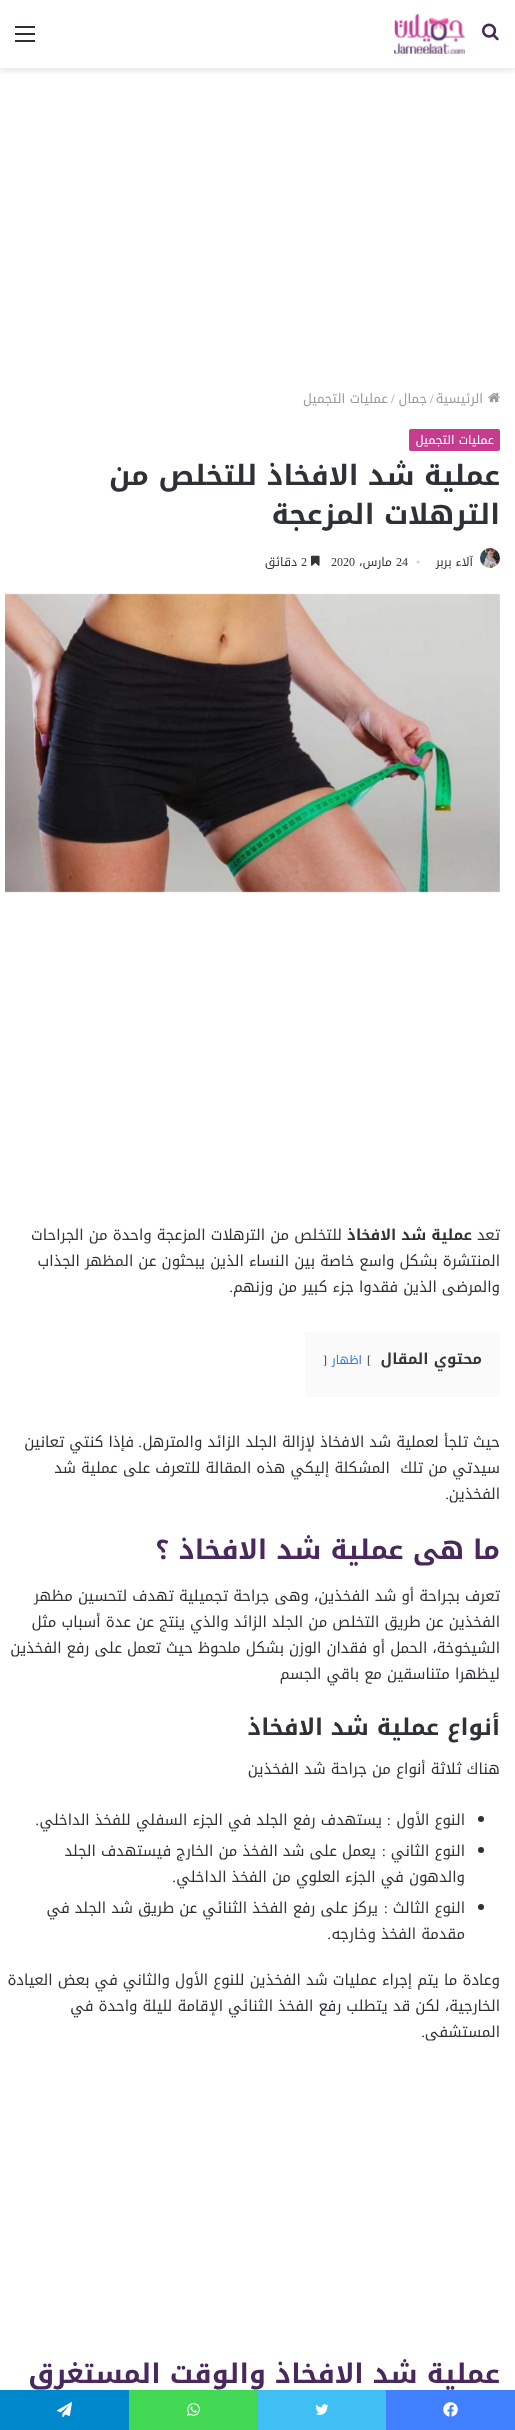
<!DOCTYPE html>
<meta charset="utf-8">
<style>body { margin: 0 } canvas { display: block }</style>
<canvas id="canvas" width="515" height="2430"></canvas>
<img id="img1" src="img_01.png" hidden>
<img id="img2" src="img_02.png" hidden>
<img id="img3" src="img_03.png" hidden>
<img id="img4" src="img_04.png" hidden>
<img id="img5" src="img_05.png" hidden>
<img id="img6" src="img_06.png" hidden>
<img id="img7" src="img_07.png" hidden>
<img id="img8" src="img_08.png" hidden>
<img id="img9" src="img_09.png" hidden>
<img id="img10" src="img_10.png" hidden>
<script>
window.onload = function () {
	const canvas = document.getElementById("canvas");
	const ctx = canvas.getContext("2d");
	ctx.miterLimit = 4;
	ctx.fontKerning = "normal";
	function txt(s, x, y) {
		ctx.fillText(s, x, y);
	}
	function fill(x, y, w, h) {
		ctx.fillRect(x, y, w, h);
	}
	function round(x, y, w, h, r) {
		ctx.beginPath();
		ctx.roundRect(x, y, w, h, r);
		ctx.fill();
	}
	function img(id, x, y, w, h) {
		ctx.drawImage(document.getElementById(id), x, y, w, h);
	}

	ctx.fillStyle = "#FFFFFF";
	fill(0, 0, 515, 2430);
	ctx.save();
	ctx.beginPath();
	ctx.rect(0, 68, 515, 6);
	ctx.clip();
	ctx.fillStyle = "rgba(0, 0, 0, 0.1)";
	ctx.filter = "blur(3.5px)";
	ctx.beginPath();
	ctx.rect(0, 3, 515, 68);
	ctx.fill();
	ctx.filter = "none";
	ctx.restore();
	img("img1", 482, 23, 17, 18);
	img("img2", 394, 14, 71, 40);
	ctx.fillStyle = "#2C2F34";
	fill(15, 33, 20, 2);
	fill(15, 26, 20, 2);
	fill(15, 40, 20, 2);
	img("img3", 488, 392, 12, 11);
	ctx.fillStyle = "#C63D90";
	round(409, 429, 91, 22, 2);
	img("img4", 480, 548, 20, 20);
	img("img5", 311, 555, 9, 11);
	img("img6", 5, 593, 495, 300);
	ctx.fillStyle = "#FAFAFA";
	fill(305, 1332, 195, 65);
	ctx.fillStyle = "#2E3136";
	ctx.beginPath();
	ctx.arc(481, 1819, 3, 0, Math.PI * 2);
	ctx.fill();
	ctx.beginPath();
	ctx.arc(481, 1850, 3, 0, Math.PI * 2);
	ctx.fill();
	ctx.beginPath();
	ctx.arc(481, 1907, 3, 0, Math.PI * 2);
	ctx.fill();
	ctx.fillStyle = "#4080FF";
	fill(386, 2390, 129, 40);
	img("img7", 443, 2402, 15, 15);
	ctx.fillStyle = "#40BFF5";
	fill(258, 2390, 128, 40);
	img("img8", 315, 2404, 14, 11);
	ctx.fillStyle = "#43D854";
	fill(129, 2390, 129, 40);
	img("img9", 187, 2403, 13, 13);
	ctx.fillStyle = "#0088CC";
	fill(0, 2390, 129, 40);
	img("img10", 57, 2402, 15, 15);
	ctx.direction = "rtl";
	ctx.font = "13px Noto Kufi Arabic";
	ctx.fillStyle = "#9A9A9A";
	txt("الرئيسية", 483, 403);
	ctx.direction = "ltr";
	ctx.font = "13px Liberation Serif";
	txt("/", 430, 403);
	ctx.direction = "rtl";
	ctx.font = "13px Noto Kufi Arabic";
	txt("جمال", 427, 403);
	ctx.direction = "ltr";
	ctx.font = "13px Liberation Serif";
	txt("/", 391, 403);
	ctx.direction = "rtl";
	ctx.font = "13px Noto Kufi Arabic";
	txt("عمليات التجميل", 388, 403);
	ctx.font = "12px Noto Kufi Arabic";
	ctx.fillStyle = "#FFFFFF";
	txt("عمليات التجميل", 494, 444);
	ctx.font = "bold 28px Noto Kufi Arabic";
	ctx.fillStyle = "#2E3136";
	txt("عملية شد الافخاذ للتخلص من", 500, 485);
	txt("الترهلات المزعجة", 500, 524);
	ctx.font = "12px Noto Kufi Arabic";
	ctx.fillStyle = "#353535";
	txt("آلاء بربر", 473, 566);
	ctx.direction = "ltr";
	ctx.font = "12px Liberation Serif";
	ctx.fillStyle = "#CDCDCD";
	txt("•", 416, 566);
	ctx.fillStyle = "#353535";
	txt("24", 396, 566);
	ctx.direction = "rtl";
	ctx.font = "12px Noto Kufi Arabic";
	txt("مارس،", 392, 566);
	ctx.direction = "ltr";
	ctx.font = "12px Liberation Serif";
	txt("2020", 331, 566);
	txt("2", 301, 566);
	ctx.direction = "rtl";
	ctx.font = "12px Noto Kufi Arabic";
	txt("دقائق", 297, 566);
	ctx.font = "15px Noto Kufi Arabic";
	ctx.fillStyle = "#2E3136";
	txt("تعد", 500, 1240);
	ctx.font = "bold 15px Noto Kufi Arabic";
	txt("عملية شد الافخاذ", 472, 1240);
	ctx.font = "15px Noto Kufi Arabic";
	txt("للتخلص من الترهلات المزعجة واحدة من الجراحات", 342, 1240);
	txt("المنتشرة بشكل واسع خاصة بين النساء الذين يبحثون عن المظهر الجذاب", 500, 1266);
	txt("والمرضى الذين فقدوا جزء كبير من وزنهم", 500, 1292);
	ctx.font = "15px Liberation Serif";
	txt(".", 233, 1292);
	ctx.font = "bold 15px Noto Kufi Arabic";
	ctx.fillStyle = "#353535";
	txt("محتوي المقال", 482, 1364);
	ctx.direction = "ltr";
	ctx.font = "12px Liberation Serif";
	txt("[", 367, 1364);
	ctx.direction = "rtl";
	ctx.font = "12px Noto Kufi Arabic";
	ctx.fillStyle = "#3376E4";
	txt("اظهار", 362, 1364);
	ctx.direction = "ltr";
	ctx.font = "12px Liberation Serif";
	ctx.fillStyle = "#353535";
	txt("]", 323, 1364);
	ctx.direction = "rtl";
	ctx.font = "15px Noto Kufi Arabic";
	ctx.fillStyle = "#2E3136";
	txt("حيث تلجأ لعملية شد الافخاذ لإزالة الجلد الزائد والمترهل", 500, 1447);
	ctx.font = "15px Liberation Serif";
	txt(".", 142, 1447);
	ctx.font = "15px Noto Kufi Arabic";
	txt("فإذا كنتي تعانين", 134, 1447);
	txt("سيدتي من تلك  المشكلة إليكي هذه المقالة للتعرف على عملية شد", 500, 1473);
	txt("الفخذين", 500, 1499);
	ctx.font = "15px Liberation Serif";
	txt(".", 449, 1499);
	ctx.font = "bold 27px Noto Kufi Arabic";
	ctx.fillStyle = "#49295D";
	txt("ما هى عملية شد الافخاذ ؟", 500, 1559);
	ctx.font = "15px Noto Kufi Arabic";
	ctx.fillStyle = "#2E3136";
	txt("تعرف بجراحة أو شد الفخذين، وهى جراحة تجميلية تهدف لتحسين مظهر", 500, 1601);
	txt("الفخذين عن طريق التخلص من الجلد الزائد والذي ينتج عن عدة أسباب مثل", 500, 1627);
	txt("الشيخوخة، الحمل أو فقدان الوزن بشكل ملحوظ حيث تعمل على رفع الفخذين", 500, 1653);
	txt("ليظهرا متناسقين مع باقي الجسم", 500, 1679);
	ctx.font = "bold 23px Noto Kufi Arabic";
	txt("أنواع عملية شد الافخاذ", 500, 1735);
	ctx.font = "15px Noto Kufi Arabic";
	txt("هناك ثلاثة أنواع من جراحة شد الفخذين", 500, 1774);
	txt("النوع الأول", 465, 1825);
	ctx.font = "15px Liberation Serif";
	txt(":", 391, 1825);
	ctx.font = "15px Noto Kufi Arabic";
	txt("يستهدف رفع الجلد في الجزء السفلي للفخذ الداخلي", 382, 1825);
	ctx.font = "15px Liberation Serif";
	txt(".", 39, 1825);
	ctx.font = "15px Noto Kufi Arabic";
	txt("النوع الثاني", 465, 1856);
	ctx.font = "15px Liberation Serif";
	txt(":", 386, 1856);
	ctx.font = "15px Noto Kufi Arabic";
	txt("يعمل على شد الفخذ من الخارج فيستهدف الجلد", 376, 1856);
	txt("والدهون في الجزء العلوي من الفخذ الداخلي", 465, 1882);
	ctx.font = "15px Liberation Serif";
	txt(".", 176, 1882);
	ctx.font = "15px Noto Kufi Arabic";
	txt("النوع الثالث", 465, 1913);
	ctx.font = "15px Liberation Serif";
	txt(":", 388, 1913);
	ctx.font = "15px Noto Kufi Arabic";
	txt("يركز على رفع الفخذ الثنائي عن طريق شد الجلد في", 378, 1913);
	txt("مقدمة الفخذ وخارجه", 465, 1939);
	ctx.font = "15px Liberation Serif";
	txt(".", 331, 1939);
	ctx.font = "15px Noto Kufi Arabic";
	txt("وعادة ما يتم إجراء عمليات شد الفخذين للنوع الأول والثاني في بعض العيادة", 500, 1985);
	txt("الخارجية، لكن قد يتطلب رفع الفخذ الثنائي الإقامة لليلة واحدة في", 500, 2011);
	txt("المستشفى", 500, 2037);
	ctx.font = "15px Liberation Serif";
	txt(".", 425, 2037);
	ctx.font = "bold 27px Noto Kufi Arabic";
	ctx.fillStyle = "#49295D";
	txt("عملية شد الافخاذ والوقت المستغرق", 500, 2383);
};
</script>
